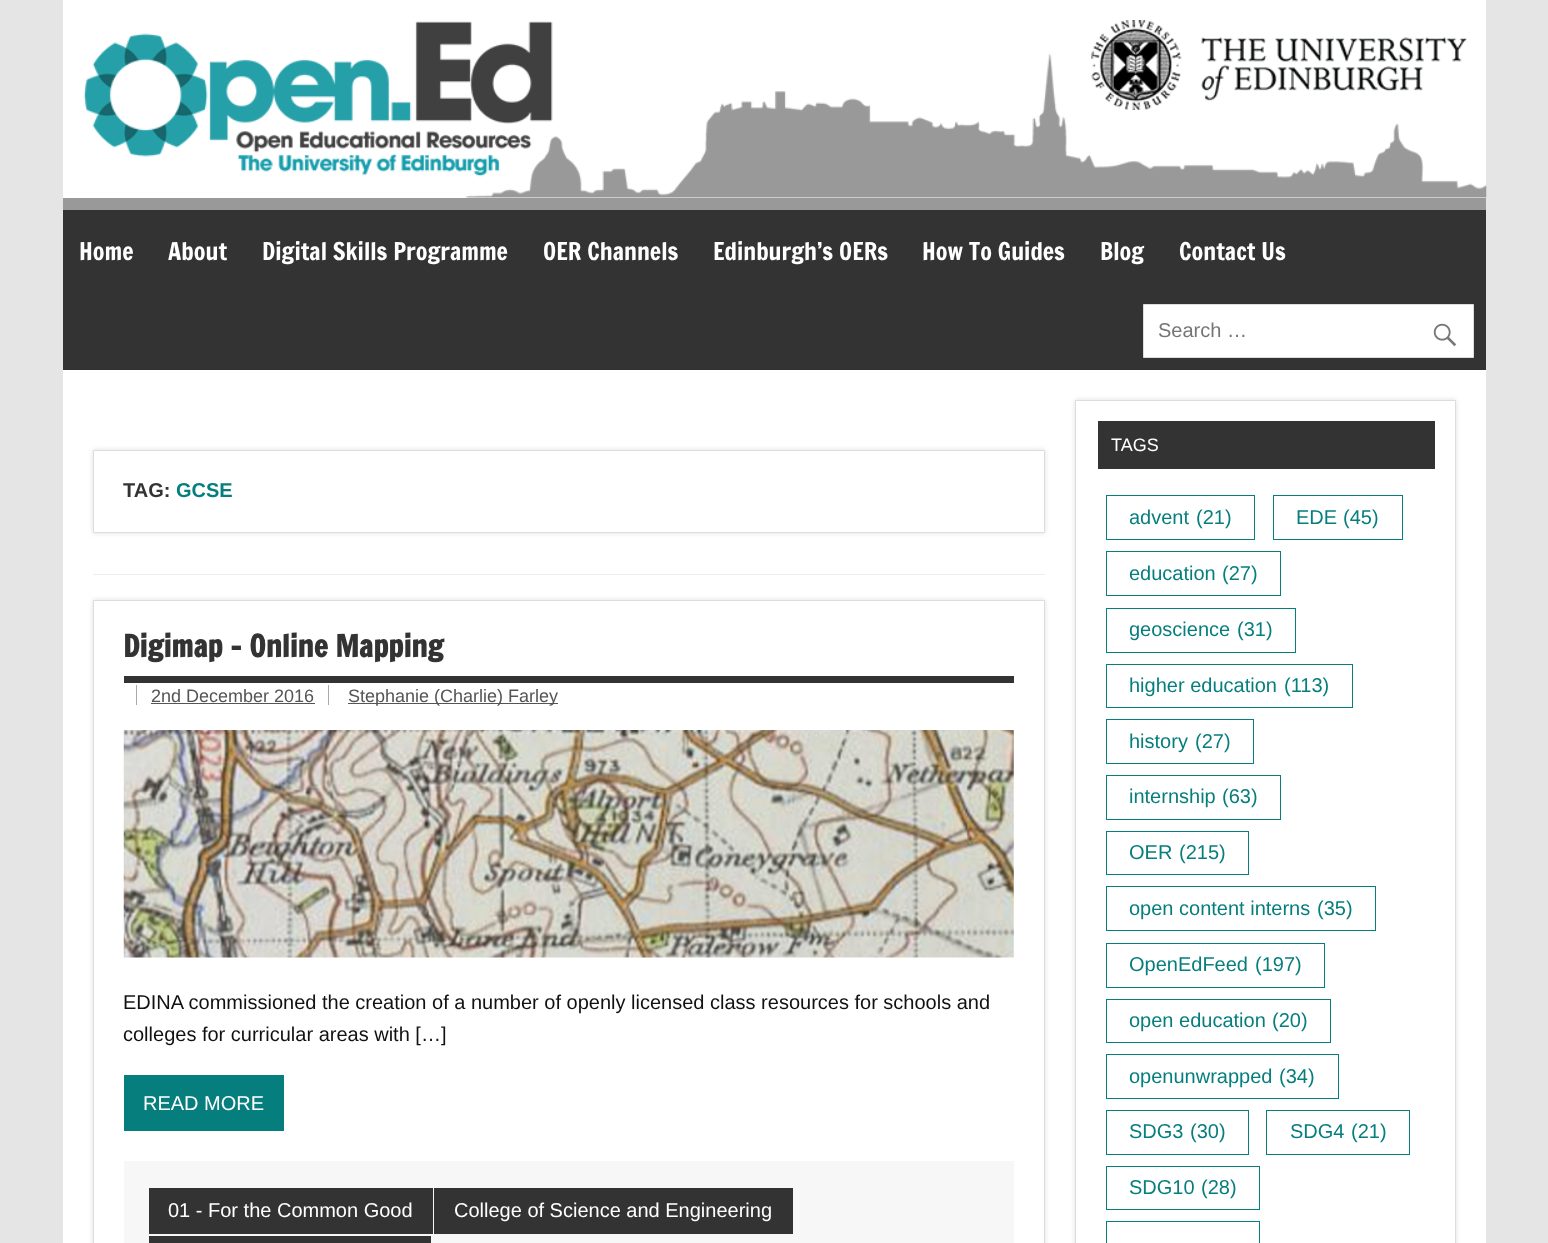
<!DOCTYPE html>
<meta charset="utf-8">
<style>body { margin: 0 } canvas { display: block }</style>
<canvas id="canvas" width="1548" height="1243"></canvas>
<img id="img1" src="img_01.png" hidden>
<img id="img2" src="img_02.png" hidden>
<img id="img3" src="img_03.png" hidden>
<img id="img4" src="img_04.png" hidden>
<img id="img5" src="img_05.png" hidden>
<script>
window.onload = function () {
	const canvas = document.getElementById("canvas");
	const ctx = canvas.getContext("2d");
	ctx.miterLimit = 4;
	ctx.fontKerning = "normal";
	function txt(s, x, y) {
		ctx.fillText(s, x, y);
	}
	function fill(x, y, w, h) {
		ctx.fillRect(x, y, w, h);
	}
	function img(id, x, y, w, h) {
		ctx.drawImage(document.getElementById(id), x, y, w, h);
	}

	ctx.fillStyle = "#E5E5E5";
	fill(0, 0, 1548, 1243);
	ctx.fillStyle = "#FFFFFF";
	fill(63, 0, 1423, 1243);
	img("img1", 466, 53, 1021, 145);
	ctx.fillStyle = "#999999";
	fill(63, 198, 1423, 12);
	img("img2", 83, 21, 470, 156);
	img("img3", 1091, 20, 376, 90);
	ctx.fillStyle = "#333333";
	fill(63, 210, 1423, 160);
	ctx.fillStyle = "#FFFFFF";
	ctx.beginPath();
	ctx.rect(1143.5, 304.5, 330, 53);
	ctx.fill();
	ctx.strokeStyle = "#DDDDDD";
	ctx.stroke();
	img("img4", 1433, 323, 24, 24);
	ctx.fillStyle = "#EEEEEE";
	fill(93, 574, 952, 1);
	ctx.fillStyle = "#DDDDDD";
	ctx.filter = "blur(2.5px)";
	ctx.beginPath();
	ctx.rect(93, 450, 952, 83);
	ctx.fill();
	ctx.filter = "none";
	ctx.fillStyle = "#FFFFFF";
	ctx.beginPath();
	ctx.rect(93.5, 450.5, 951, 82);
	ctx.fill();
	ctx.stroke();
	ctx.save();
	ctx.beginPath();
	ctx.moveTo(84, 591);
	ctx.lineTo(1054, 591);
	ctx.lineTo(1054, 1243);
	ctx.lineTo(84, 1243);
	ctx.closePath();
	ctx.moveTo(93, 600);
	ctx.lineTo(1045, 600);
	ctx.lineTo(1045, 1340);
	ctx.lineTo(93, 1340);
	ctx.closePath();
	ctx.clip("evenodd");
	ctx.fillStyle = "#DDDDDD";
	ctx.filter = "blur(2.5px)";
	ctx.beginPath();
	ctx.rect(93, 600, 952, 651);
	ctx.fill();
	ctx.filter = "none";
	ctx.restore();
	ctx.strokeRect(93.5, 600.5, 951, 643);
	ctx.fillStyle = "#333333";
	fill(124, 676, 890, 7);
	ctx.fillStyle = "#AAAAAA";
	fill(136, 685, 1, 20);
	ctx.fillStyle = "#555555";
	fill(151, 703, 164, 1);
	ctx.fillStyle = "#AAAAAA";
	fill(328, 685, 1, 20);
	ctx.fillStyle = "#555555";
	fill(348, 703, 210, 1);
	img("img5", 123, 730, 891, 228);
	ctx.fillStyle = "#067E7D";
	fill(124, 1075, 160, 56);
	ctx.fillStyle = "#F7F7F7";
	fill(124, 1161, 890, 82);
	ctx.fillStyle = "#333333";
	fill(149, 1188, 284, 46);
	fill(434, 1188, 359, 46);
	fill(149, 1236, 282, 7);
	ctx.save();
	ctx.beginPath();
	ctx.moveTo(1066, 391);
	ctx.lineTo(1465, 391);
	ctx.lineTo(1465, 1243);
	ctx.lineTo(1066, 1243);
	ctx.closePath();
	ctx.moveTo(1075, 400);
	ctx.lineTo(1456, 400);
	ctx.lineTo(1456, 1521);
	ctx.lineTo(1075, 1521);
	ctx.closePath();
	ctx.clip("evenodd");
	ctx.fillStyle = "#DDDDDD";
	ctx.filter = "blur(2.5px)";
	ctx.beginPath();
	ctx.rect(1075, 400, 381, 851);
	ctx.fill();
	ctx.filter = "none";
	ctx.restore();
	ctx.strokeRect(1075.5, 400.5, 380, 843);
	fill(1098, 421, 337, 48);
	ctx.strokeStyle = "#067E7D";
	ctx.strokeRect(1106.5, 495.5, 148, 44);
	ctx.strokeRect(1273.5, 495.5, 129, 44);
	ctx.strokeRect(1106.5, 551.5, 174, 44);
	ctx.strokeRect(1106.5, 608.5, 189, 44);
	ctx.strokeRect(1106.5, 664.5, 246, 43);
	ctx.strokeRect(1106.5, 719.5, 147, 44);
	ctx.strokeRect(1106.5, 775.5, 174, 44);
	ctx.strokeRect(1106.5, 831.5, 142, 43);
	ctx.strokeRect(1106.5, 886.5, 269, 44);
	ctx.strokeRect(1106.5, 943.5, 218, 44);
	ctx.strokeRect(1106.5, 999.5, 224, 43);
	ctx.strokeRect(1106.5, 1054.5, 232, 44);
	ctx.strokeRect(1106.5, 1110.5, 142, 44);
	ctx.strokeRect(1266.5, 1110.5, 143, 44);
	ctx.strokeRect(1106.5, 1166.5, 153, 43);
	ctx.strokeRect(1106.5, 1221.5, 153, 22);
	ctx.font = "24px Francois One";
	ctx.fillStyle = "#FFFFFF";
	txt("Home", 79, 260);
	txt("About", 168, 260);
	txt("Digital Skills Programme", 262, 260);
	txt("OER Channels", 543, 260);
	txt("Edinburgh’s OERs", 713, 260);
	txt("How To Guides", 922, 260);
	txt("Blog", 1100, 260);
	txt("Contact Us", 1179, 260);
	ctx.font = "20px Liberation Sans";
	ctx.fillStyle = "#757575";
	txt("Search …", 1158, 337);
	ctx.font = "bold 20px Liberation Sans";
	ctx.fillStyle = "#333333";
	txt("TAG:", 123, 497);
	ctx.fillStyle = "#067E7D";
	txt("GCSE", 176, 497);
	ctx.font = "bold 30px Francois One";
	ctx.fillStyle = "#333333";
	txt("Digimap – Online Mapping", 123, 657);
	ctx.font = "18px Liberation Sans";
	ctx.fillStyle = "#555555";
	txt("2nd December 2016", 151, 702);
	txt("Stephanie (Charlie) Farley", 348, 702);
	ctx.font = "20px Liberation Sans";
	ctx.fillStyle = "#111111";
	txt("EDINA commissioned the creation of a number of openly licensed class resources for schools and", 123, 1009);
	txt("colleges for curricular areas with […]", 123, 1041);
	ctx.fillStyle = "#FFFFFF";
	txt("READ MORE", 143, 1110);
	txt("01 - For the Common Good", 168, 1217);
	txt("College of Science and Engineering", 454, 1217);
	ctx.font = "18px Liberation Sans";
	txt("TAGS", 1111, 451);
	ctx.font = "20px Liberation Sans";
	ctx.fillStyle = "#067E7D";
	txt("advent", 1129, 524);
	txt("(21)", 1196, 524);
	txt("EDE", 1296, 524);
	txt("(45)", 1343, 524);
	txt("education", 1129, 580);
	txt("(27)", 1222, 580);
	txt("geoscience", 1129, 636);
	txt("(31)", 1237, 636);
	txt("higher education", 1129, 692);
	txt("(113)", 1284, 692);
	txt("history", 1129, 748);
	txt("(27)", 1195, 748);
	txt("internship", 1129, 803);
	txt("(63)", 1222, 803);
	txt("OER", 1129, 859);
	txt("(215)", 1179, 859);
	txt("open content interns", 1129, 915);
	txt("(35)", 1317, 915);
	txt("OpenEdFeed", 1129, 971);
	txt("(197)", 1255, 971);
	txt("open education", 1129, 1027);
	txt("(20)", 1272, 1027);
	txt("openunwrapped", 1129, 1083);
	txt("(34)", 1279, 1083);
	txt("SDG3", 1129, 1138);
	txt("(30)", 1190, 1138);
	txt("SDG4", 1290, 1138);
	txt("(21)", 1351, 1138);
	txt("SDG10", 1129, 1194);
	txt("(28)", 1201, 1194);
};
</script>
